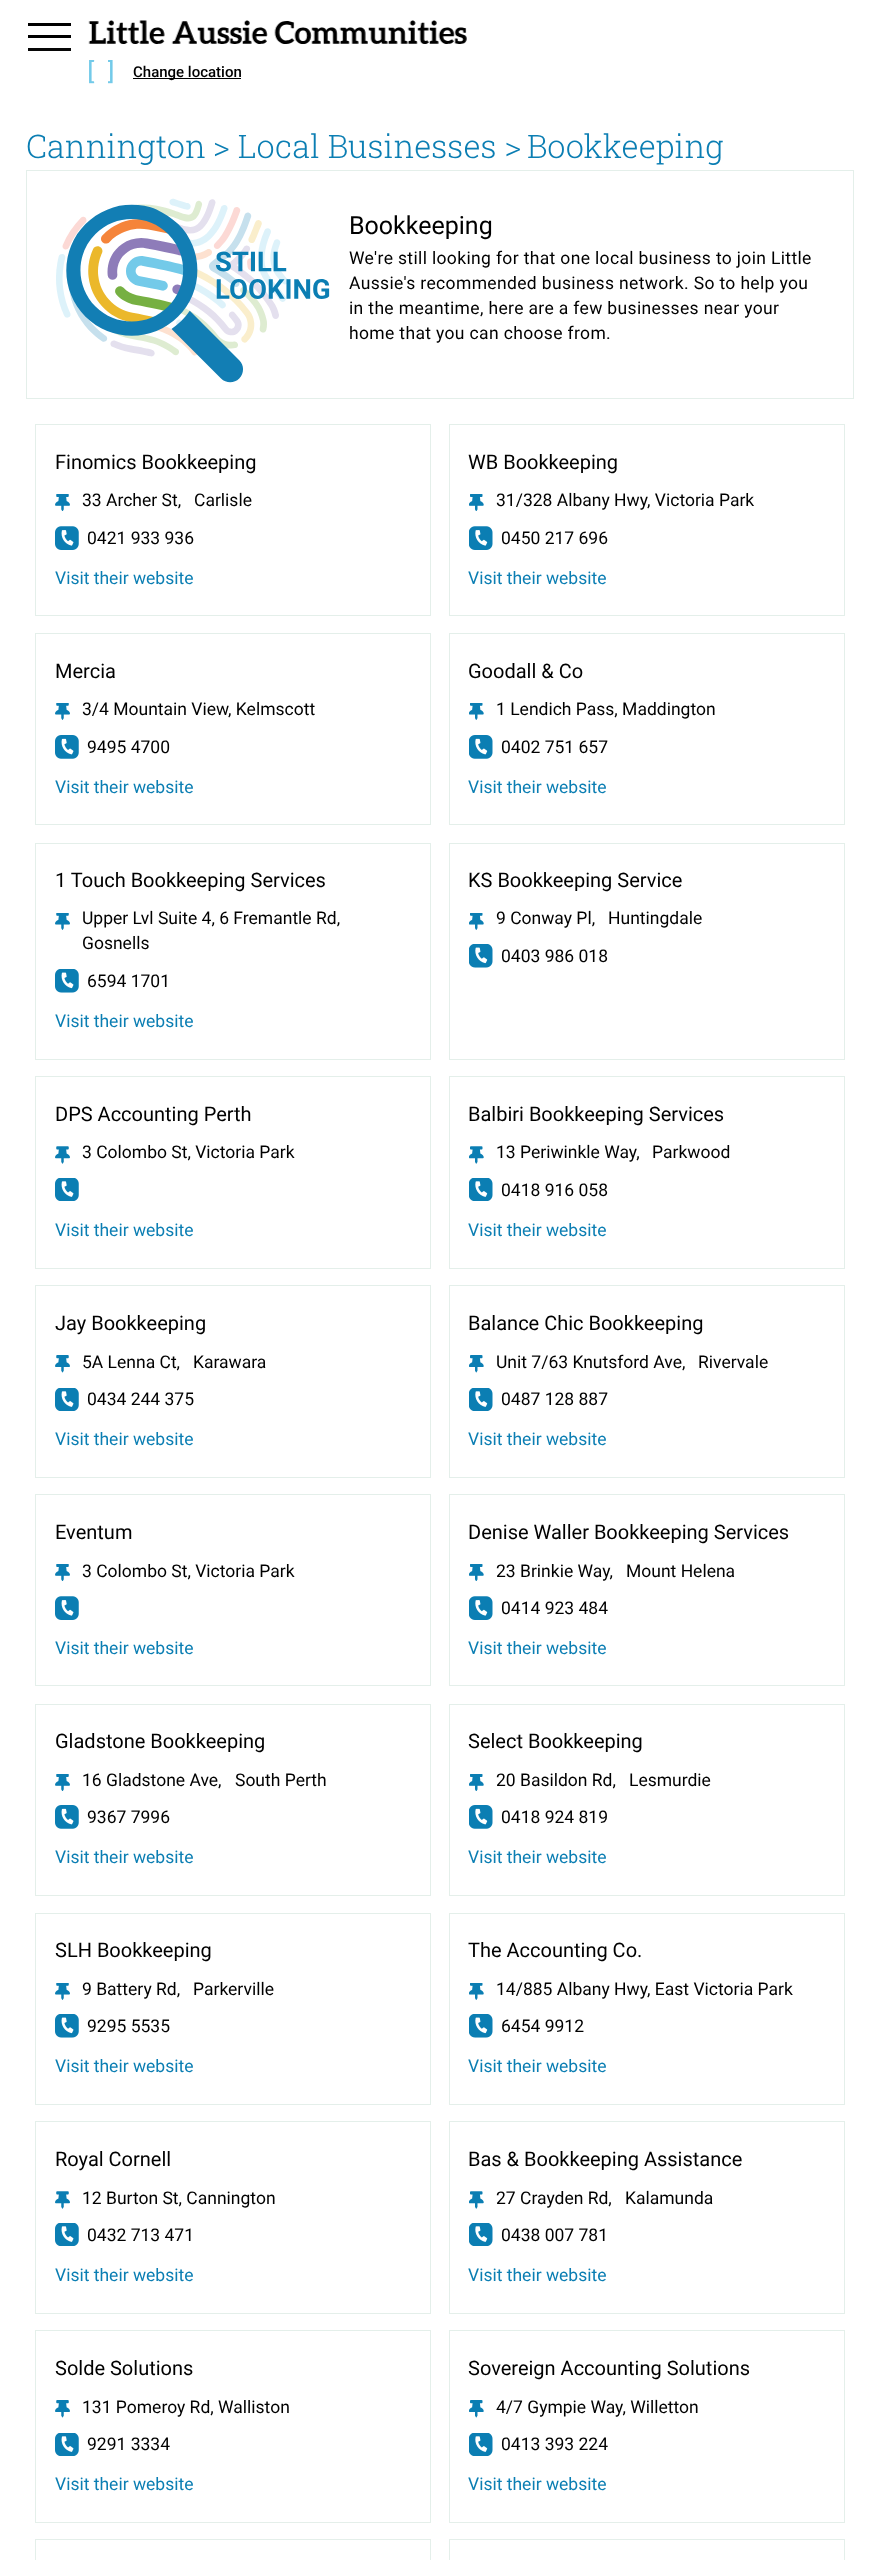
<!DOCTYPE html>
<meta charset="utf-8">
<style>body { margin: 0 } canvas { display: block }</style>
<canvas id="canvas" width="880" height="2560"></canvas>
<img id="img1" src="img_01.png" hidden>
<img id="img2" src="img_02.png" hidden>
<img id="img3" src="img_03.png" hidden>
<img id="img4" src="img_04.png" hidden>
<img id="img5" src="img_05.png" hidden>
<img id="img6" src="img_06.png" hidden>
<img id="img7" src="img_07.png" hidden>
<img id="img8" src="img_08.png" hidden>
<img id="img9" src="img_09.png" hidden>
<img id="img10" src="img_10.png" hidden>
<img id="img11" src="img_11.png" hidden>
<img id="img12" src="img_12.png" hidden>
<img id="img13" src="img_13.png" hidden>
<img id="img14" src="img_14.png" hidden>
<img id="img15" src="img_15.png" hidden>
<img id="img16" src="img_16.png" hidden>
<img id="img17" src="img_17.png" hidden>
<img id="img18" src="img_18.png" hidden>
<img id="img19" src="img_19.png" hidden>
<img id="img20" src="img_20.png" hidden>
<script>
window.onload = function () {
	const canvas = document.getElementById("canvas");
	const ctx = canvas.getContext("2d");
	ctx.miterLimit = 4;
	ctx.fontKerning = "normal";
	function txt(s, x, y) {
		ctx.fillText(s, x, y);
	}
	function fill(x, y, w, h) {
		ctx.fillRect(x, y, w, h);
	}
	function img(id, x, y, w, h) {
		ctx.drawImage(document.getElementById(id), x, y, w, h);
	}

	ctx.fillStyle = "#FFFFFF";
	fill(0, 0, 880, 2560);
	ctx.fillStyle = "#000000";
	fill(28, 23, 43, 3);
	fill(28, 35, 43, 3);
	ctx.fillStyle = "#070707";
	fill(28, 48, 43, 3);
	img("img1", 88, 20, 379, 24);
	img("img2", 89, 60, 6, 24);
	img("img3", 108, 60, 5, 24);
	ctx.fillStyle = "#000000";
	fill(133, 78, 108, 1);
	ctx.strokeStyle = "#E4EFEA";
	ctx.strokeRect(26.5, 170.5, 827, 228);
	img("img4", 56, 198, 274, 185);
	ctx.strokeRect(35.5, 424.5, 395, 191);
	img("img5", 55, 494, 15, 17);
	img("img6", 55, 526, 24, 24);
	ctx.strokeRect(449.5, 424.5, 395, 191);
	img("img7", 469, 494, 15, 17);
	img("img8", 469, 526, 24, 24);
	ctx.strokeRect(35.5, 633.5, 395, 191);
	img("img9", 55, 703, 15, 17);
	img("img10", 55, 735, 24, 24);
	ctx.strokeRect(449.5, 633.5, 395, 191);
	img("img11", 469, 703, 15, 17);
	img("img12", 469, 735, 24, 24);
	ctx.strokeRect(35.5, 843.5, 395, 216);
	img("img9", 55, 913, 15, 17);
	img("img13", 55, 969, 24, 24);
	ctx.strokeRect(449.5, 843.5, 395, 216);
	img("img11", 469, 913, 15, 17);
	img("img14", 469, 944, 24, 24);
	ctx.strokeRect(35.5, 1076.5, 395, 192);
	img("img15", 55, 1146, 15, 18);
	img("img16", 55, 1178, 24, 23);
	ctx.strokeRect(449.5, 1076.5, 395, 192);
	img("img17", 469, 1146, 15, 18);
	img("img18", 469, 1178, 24, 23);
	ctx.strokeRect(35.5, 1285.5, 395, 192);
	img("img19", 55, 1355, 15, 18);
	img("img16", 55, 1388, 24, 23);
	ctx.strokeRect(449.5, 1285.5, 395, 192);
	img("img20", 469, 1355, 15, 18);
	img("img18", 469, 1388, 24, 23);
	ctx.strokeRect(35.5, 1494.5, 395, 191);
	img("img5", 55, 1564, 15, 17);
	img("img6", 55, 1596, 24, 24);
	ctx.strokeRect(449.5, 1494.5, 395, 191);
	img("img7", 469, 1564, 15, 17);
	img("img8", 469, 1596, 24, 24);
	ctx.strokeRect(35.5, 1704.5, 395, 191);
	img("img5", 55, 1774, 15, 17);
	img("img10", 55, 1805, 24, 24);
	ctx.strokeRect(449.5, 1704.5, 395, 191);
	img("img7", 469, 1774, 15, 17);
	img("img12", 469, 1805, 24, 24);
	ctx.strokeRect(35.5, 1913.5, 395, 191);
	img("img9", 55, 1983, 15, 17);
	img("img13", 55, 2014, 24, 24);
	ctx.strokeRect(449.5, 1913.5, 395, 191);
	img("img11", 469, 1983, 15, 17);
	img("img14", 469, 2014, 24, 24);
	ctx.strokeRect(35.5, 2121.5, 395, 192);
	img("img15", 55, 2191, 15, 18);
	img("img16", 55, 2223, 24, 23);
	ctx.strokeRect(449.5, 2121.5, 395, 192);
	img("img17", 469, 2191, 15, 18);
	img("img18", 469, 2223, 24, 23);
	ctx.strokeRect(35.5, 2330.5, 395, 192);
	img("img19", 55, 2400, 15, 18);
	img("img16", 55, 2433, 24, 23);
	ctx.strokeRect(449.5, 2330.5, 395, 192);
	img("img20", 469, 2400, 15, 18);
	img("img18", 469, 2433, 24, 23);
	ctx.strokeRect(35.5, 2539.5, 395, 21);
	ctx.strokeRect(449.5, 2539.5, 395, 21);
	ctx.font = "500 15px Roboto";
	txt("Change location", 133, 77);
	ctx.font = "300 32.5px Roboto Slab";
	ctx.fillStyle = "#0B7EB3";
	txt("Cannington", 26, 158);
	txt("> Local Businesses >", 213, 158);
	txt("Bookkeeping", 527, 158);
	ctx.font = "25px Roboto";
	ctx.fillStyle = "#000000";
	txt("Bookkeeping", 349, 234);
	ctx.letterSpacing = "0.35px";
	ctx.font = "17.5px Roboto";
	txt("We're still looking for that one local business to join Little", 349, 264);
	txt("Aussie's recommended business network. So to help you", 349, 289);
	txt("in the meantime, here are a few businesses near your", 349, 314);
	txt("home that you can choose from.", 349, 339);
	ctx.letterSpacing = "0px";
	ctx.font = "20px Roboto";
	txt("Finomics Bookkeeping", 55, 469);
	ctx.font = "17.5px Roboto";
	txt("33 Archer St,", 82, 506);
	txt("Carlisle", 194, 506);
	txt("0421 933 936", 87, 544);
	ctx.fillStyle = "#0B7EB3";
	txt("Visit their website", 55, 584);
	ctx.font = "20px Roboto";
	ctx.fillStyle = "#000000";
	txt("WB Bookkeeping", 468, 469);
	ctx.font = "17.5px Roboto";
	txt("31/328 Albany Hwy, Victoria Park", 496, 506);
	txt("0450 217 696", 501, 544);
	ctx.fillStyle = "#0B7EB3";
	txt("Visit their website", 468, 584);
	ctx.font = "20px Roboto";
	ctx.fillStyle = "#000000";
	txt("Mercia", 55, 678);
	ctx.font = "17.5px Roboto";
	txt("3/4 Mountain View, Kelmscott", 82, 715);
	txt("9495 4700", 87, 753);
	ctx.fillStyle = "#0B7EB3";
	txt("Visit their website", 55, 793);
	ctx.font = "20px Roboto";
	ctx.fillStyle = "#000000";
	txt("Goodall & Co", 468, 678);
	ctx.font = "17.5px Roboto";
	txt("1 Lendich Pass, Maddington", 496, 715);
	txt("0402 751 657", 501, 753);
	ctx.fillStyle = "#0B7EB3";
	txt("Visit their website", 468, 793);
	ctx.font = "20px Roboto";
	ctx.fillStyle = "#000000";
	txt("1 Touch Bookkeeping Services", 55, 887);
	ctx.font = "17.5px Roboto";
	txt("Upper Lvl Suite 4, 6 Fremantle Rd,", 82, 924);
	txt("Gosnells", 82, 949);
	txt("6594 1701", 87, 987);
	ctx.fillStyle = "#0B7EB3";
	txt("Visit their website", 55, 1027);
	ctx.font = "20px Roboto";
	ctx.fillStyle = "#000000";
	txt("KS Bookkeeping Service", 468, 887);
	ctx.font = "17.5px Roboto";
	txt("9 Conway Pl,", 496, 924);
	txt("Huntingdale", 608, 924);
	txt("0403 986 018", 501, 962);
	ctx.font = "20px Roboto";
	txt("DPS Accounting Perth", 55, 1121);
	ctx.font = "17.5px Roboto";
	txt("3 Colombo St, Victoria Park", 82, 1158);
	ctx.fillStyle = "#0B7EB3";
	txt("Visit their website", 55, 1236);
	ctx.font = "20px Roboto";
	ctx.fillStyle = "#000000";
	txt("Balbiri Bookkeeping Services", 468, 1121);
	ctx.font = "17.5px Roboto";
	txt("13 Periwinkle Way,", 496, 1158);
	txt("Parkwood", 652, 1158);
	txt("0418 916 058", 501, 1196);
	ctx.fillStyle = "#0B7EB3";
	txt("Visit their website", 468, 1236);
	ctx.font = "20px Roboto";
	ctx.fillStyle = "#000000";
	txt("Jay Bookkeeping", 55, 1330);
	ctx.font = "17.5px Roboto";
	txt("5A Lenna Ct,", 82, 1368);
	txt("Karawara", 193, 1368);
	txt("0434 244 375", 87, 1405);
	ctx.fillStyle = "#0B7EB3";
	txt("Visit their website", 55, 1445);
	ctx.font = "20px Roboto";
	ctx.fillStyle = "#000000";
	txt("Balance Chic Bookkeeping", 468, 1330);
	ctx.font = "17.5px Roboto";
	txt("Unit 7/63 Knutsford Ave,", 496, 1368);
	txt("Rivervale", 698, 1368);
	txt("0487 128 887", 501, 1405);
	ctx.fillStyle = "#0B7EB3";
	txt("Visit their website", 468, 1445);
	ctx.font = "20px Roboto";
	ctx.fillStyle = "#000000";
	txt("Eventum", 55, 1539);
	ctx.font = "17.5px Roboto";
	txt("3 Colombo St, Victoria Park", 82, 1577);
	ctx.fillStyle = "#0B7EB3";
	txt("Visit their website", 55, 1654);
	ctx.font = "20px Roboto";
	ctx.fillStyle = "#000000";
	txt("Denise Waller Bookkeeping Services", 468, 1539);
	ctx.font = "17.5px Roboto";
	txt("23 Brinkie Way,", 496, 1577);
	txt("Mount Helena", 626, 1577);
	txt("0414 923 484", 501, 1614);
	ctx.fillStyle = "#0B7EB3";
	txt("Visit their website", 468, 1654);
	ctx.font = "20px Roboto";
	ctx.fillStyle = "#000000";
	txt("Gladstone Bookkeeping", 55, 1748);
	ctx.font = "17.5px Roboto";
	txt("16 Gladstone Ave,", 82, 1786);
	txt("South Perth", 235, 1786);
	txt("9367 7996", 87, 1823);
	ctx.fillStyle = "#0B7EB3";
	txt("Visit their website", 55, 1863);
	ctx.font = "20px Roboto";
	ctx.fillStyle = "#000000";
	txt("Select Bookkeeping", 468, 1748);
	ctx.font = "17.5px Roboto";
	txt("20 Basildon Rd,", 496, 1786);
	txt("Lesmurdie", 629, 1786);
	txt("0418 924 819", 501, 1823);
	ctx.fillStyle = "#0B7EB3";
	txt("Visit their website", 468, 1863);
	ctx.font = "20px Roboto";
	ctx.fillStyle = "#000000";
	txt("SLH Bookkeeping", 55, 1957);
	ctx.font = "17.5px Roboto";
	txt("9 Battery Rd,", 82, 1995);
	txt("Parkerville", 193, 1995);
	txt("9295 5535", 87, 2032);
	ctx.fillStyle = "#0B7EB3";
	txt("Visit their website", 55, 2072);
	ctx.font = "20px Roboto";
	ctx.fillStyle = "#000000";
	txt("The Accounting Co.", 468, 1957);
	ctx.font = "17.5px Roboto";
	txt("14/885 Albany Hwy, East Victoria Park", 496, 1995);
	txt("6454 9912", 501, 2032);
	ctx.fillStyle = "#0B7EB3";
	txt("Visit their website", 468, 2072);
	ctx.font = "20px Roboto";
	ctx.fillStyle = "#000000";
	txt("Royal Cornell", 55, 2166);
	ctx.font = "17.5px Roboto";
	txt("12 Burton St, Cannington", 82, 2204);
	txt("0432 713 471", 87, 2241);
	ctx.fillStyle = "#0B7EB3";
	txt("Visit their website", 55, 2281);
	ctx.font = "20px Roboto";
	ctx.fillStyle = "#000000";
	txt("Bas & Bookkeeping Assistance", 468, 2166);
	ctx.font = "17.5px Roboto";
	txt("27 Crayden Rd,", 496, 2204);
	txt("Kalamunda", 625, 2204);
	txt("0438 007 781", 501, 2241);
	ctx.fillStyle = "#0B7EB3";
	txt("Visit their website", 468, 2281);
	ctx.font = "20px Roboto";
	ctx.fillStyle = "#000000";
	txt("Solde Solutions", 55, 2375);
	ctx.font = "17.5px Roboto";
	txt("131 Pomeroy Rd, Walliston", 82, 2413);
	txt("9291 3334", 87, 2450);
	ctx.fillStyle = "#0B7EB3";
	txt("Visit their website", 55, 2490);
	ctx.font = "20px Roboto";
	ctx.fillStyle = "#000000";
	txt("Sovereign Accounting Solutions", 468, 2375);
	ctx.font = "17.5px Roboto";
	txt("4/7 Gympie Way, Willetton", 496, 2413);
	txt("0413 393 224", 501, 2450);
	ctx.fillStyle = "#0B7EB3";
	txt("Visit their website", 468, 2490);
};
</script>
